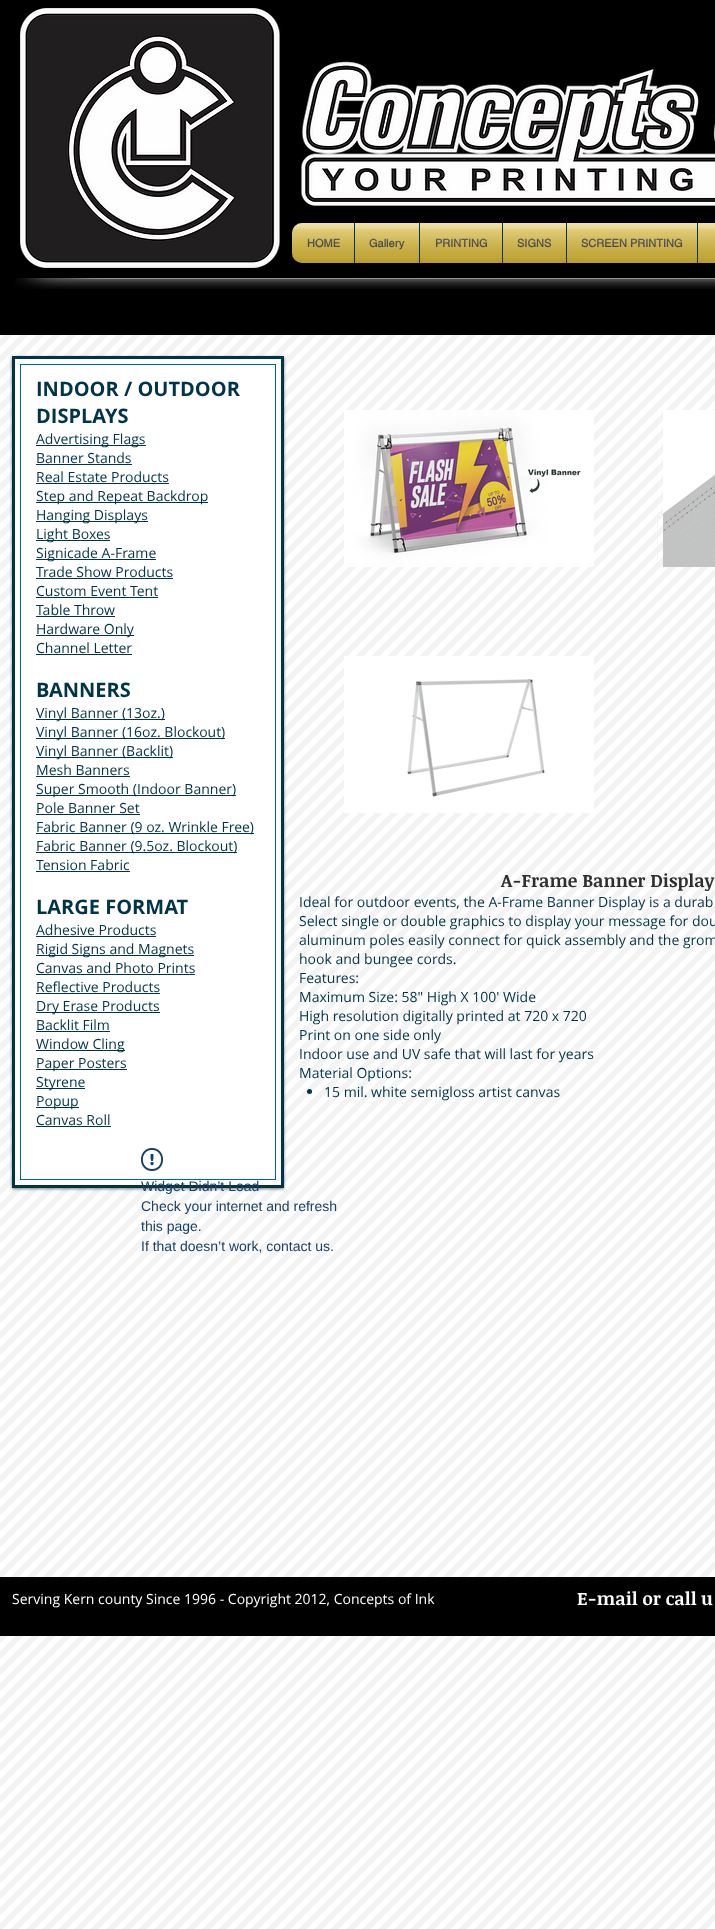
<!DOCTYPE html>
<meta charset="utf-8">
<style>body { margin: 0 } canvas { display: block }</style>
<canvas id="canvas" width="715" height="1929"></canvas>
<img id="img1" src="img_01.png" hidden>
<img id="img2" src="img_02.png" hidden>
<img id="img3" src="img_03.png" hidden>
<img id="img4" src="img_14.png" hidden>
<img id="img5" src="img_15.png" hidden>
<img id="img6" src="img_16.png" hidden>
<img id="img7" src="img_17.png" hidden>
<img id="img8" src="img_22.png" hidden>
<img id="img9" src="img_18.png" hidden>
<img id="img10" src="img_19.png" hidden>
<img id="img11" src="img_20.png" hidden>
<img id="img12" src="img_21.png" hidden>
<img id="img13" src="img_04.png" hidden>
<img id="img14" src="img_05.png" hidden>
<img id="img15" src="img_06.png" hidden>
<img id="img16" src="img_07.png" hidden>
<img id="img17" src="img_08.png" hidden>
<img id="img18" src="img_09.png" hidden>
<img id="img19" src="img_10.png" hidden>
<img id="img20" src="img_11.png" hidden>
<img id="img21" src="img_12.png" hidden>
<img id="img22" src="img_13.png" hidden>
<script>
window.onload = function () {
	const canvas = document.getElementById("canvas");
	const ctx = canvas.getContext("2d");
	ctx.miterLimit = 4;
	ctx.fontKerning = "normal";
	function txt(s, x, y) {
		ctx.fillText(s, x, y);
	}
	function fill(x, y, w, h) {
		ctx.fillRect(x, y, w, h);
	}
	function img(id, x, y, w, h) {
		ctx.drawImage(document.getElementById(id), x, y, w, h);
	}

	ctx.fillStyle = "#FFFFFF";
	fill(0, 0, 715, 1929);
	ctx.fillStyle = "#000000";
	fill(0, 0, 715, 335);
	img("img1", 20, 8, 695, 260);
	img("img2", 292, 223, 10, 40);
	img("img3", 292, 232, 10, 31);
	ctx.fillStyle = "#D6B530";
	ctx.beginPath();
	ctx.roundRect(292, 223, 62, 40, [10, 0, 0, 10]);
	ctx.fill();
	fill(355, 223, 64, 40);
	ctx.fillStyle = "#003448";
	fill(354, 223, 1, 40);
	ctx.fillStyle = "#D6B530";
	fill(420, 223, 82, 40);
	ctx.fillStyle = "#003448";
	fill(419, 223, 1, 40);
	ctx.fillStyle = "#D6B530";
	fill(503, 223, 63, 40);
	ctx.fillStyle = "#003448";
	fill(502, 223, 1, 40);
	ctx.fillStyle = "#D6B530";
	fill(567, 223, 130, 40);
	ctx.fillStyle = "#003448";
	fill(566, 223, 1, 40);
	ctx.fillStyle = "#D6B530";
	fill(698, 223, 17, 40);
	ctx.fillStyle = "#003448";
	fill(697, 223, 1, 40);
	img("img4", 698, 223, 17, 40);
	img("img5", 698, 229, 17, 34);
	img("img6", 15, 266, 97, 23);
	img("img7", 112, 266, 603, 23);
	img("img8", 0, 335, 715, 1594);
	ctx.fillStyle = "rgba(0, 0, 0, 0.5)";
	ctx.filter = "blur(1.5px)";
	ctx.beginPath();
	ctx.rect(12, 357, 272, 832);
	ctx.fill();
	ctx.filter = "none";
	ctx.fillStyle = "#FFFFFF";
	ctx.beginPath();
	ctx.rect(13.5, 357.5, 269, 829);
	ctx.fill();
	ctx.strokeStyle = "#003448";
	ctx.lineWidth = 3;
	ctx.stroke();
	ctx.strokeStyle = "#006990";
	ctx.lineWidth = 1;
	ctx.strokeRect(20.5, 364.5, 255, 815);
	ctx.fillStyle = "#003448";
	fill(36, 445, 110, 1);
	fill(36, 464, 96, 1);
	fill(36, 483, 133, 1);
	fill(36, 502, 172, 1);
	fill(36, 521, 112, 1);
	fill(36, 540, 74, 1);
	fill(36, 559, 120, 1);
	fill(36, 578, 137, 1);
	fill(36, 597, 122, 1);
	fill(36, 616, 79, 1);
	fill(36, 635, 98, 1);
	fill(36, 654, 96, 1);
	fill(36, 719, 129, 1);
	fill(36, 738, 189, 1);
	fill(36, 757, 137, 1);
	fill(36, 776, 94, 1);
	fill(36, 795, 200, 1);
	fill(36, 814, 104, 1);
	fill(36, 833, 218, 1);
	fill(36, 852, 201, 1);
	fill(36, 871, 94, 1);
	fill(36, 936, 120, 1);
	fill(36, 955, 158, 1);
	fill(36, 974, 159, 1);
	fill(36, 993, 124, 1);
	fill(36, 1012, 124, 1);
	fill(36, 1031, 74, 1);
	fill(36, 1050, 89, 1);
	fill(36, 1069, 91, 1);
	fill(36, 1088, 49, 1);
	fill(36, 1107, 43, 1);
	fill(36, 1126, 75, 1);
	img("img9", 344, 410, 250, 157);
	img("img10", 663, 410, 52, 157);
	img("img11", 344, 656, 250, 157);
	ctx.beginPath();
	ctx.arc(309.5, 1091.5, 2.5, 0, Math.PI * 2);
	ctx.fill();
	img("img12", 141, 1148, 22, 23);
	ctx.fillStyle = "#000000";
	fill(0, 1577, 715, 59);
	ctx.font = "bold 11px helvetica";
	ctx.fillStyle = "#2F2E2E";
	txt("HOME", 307, 247);
	img("img13", 292, 223, 62, 40);
	img("img14", 292, 229, 62, 34);
	txt("Gallery", 369, 247);
	img("img15", 355, 223, 64, 40);
	img("img16", 355, 229, 64, 34);
	txt("PRINTING", 435, 247);
	img("img17", 420, 223, 82, 40);
	img("img18", 420, 229, 82, 34);
	txt("SIGNS", 517, 247);
	img("img19", 503, 223, 63, 40);
	img("img20", 503, 229, 63, 34);
	txt("SCREEN PRINTING", 581, 247);
	img("img21", 567, 223, 130, 40);
	img("img22", 567, 229, 130, 34);
	ctx.font = "bold 20px Open Sans";
	ctx.fillStyle = "#003448";
	txt("INDOOR / OUTDOOR", 36, 396);
	txt("DISPLAYS", 36, 423);
	ctx.font = "14px Open Sans";
	txt("Advertising Flags", 36, 444);
	txt("Banner Stands", 36, 463);
	txt("Real Estate Products", 36, 482);
	txt("Step and Repeat Backdrop", 36, 501);
	txt("Hanging Displays", 36, 520);
	txt("Light Boxes", 36, 539);
	txt("Signicade A-Frame", 36, 558);
	txt("Trade Show Products", 36, 577);
	txt("Custom Event Tent", 36, 596);
	txt("Table Throw", 36, 615);
	txt("Hardware Only", 36, 634);
	txt("Channel Letter", 36, 653);
	ctx.font = "bold 20px Open Sans";
	txt("BANNERS", 36, 697);
	ctx.font = "14px Open Sans";
	txt("Vinyl Banner (13oz.)", 36, 718);
	txt("Vinyl Banner (16oz. Blockout)", 36, 737);
	txt("Vinyl Banner (Backlit)", 36, 756);
	txt("Mesh Banners", 36, 775);
	txt("Super Smooth (Indoor Banner)", 36, 794);
	txt("Pole Banner Set", 36, 813);
	txt("Fabric Banner (9 oz. Wrinkle Free)", 36, 832);
	txt("Fabric Banner (9.5oz. Blockout)", 36, 851);
	txt("Tension Fabric", 36, 870);
	ctx.font = "bold 20px Open Sans";
	txt("LARGE FORMAT", 36, 914);
	ctx.font = "14px Open Sans";
	txt("Adhesive Products", 36, 935);
	txt("Rigid Signs and Magnets", 36, 954);
	txt("Canvas and Photo Prints", 36, 973);
	txt("Reflective Products", 36, 992);
	txt("Dry Erase Products", 36, 1011);
	txt("Backlit Film", 36, 1030);
	txt("Window Cling", 36, 1049);
	txt("Paper Posters", 36, 1068);
	txt("Styrene", 36, 1087);
	txt("Popup", 36, 1106);
	txt("Canvas Roll", 36, 1125);
	ctx.font = "bold 18px Noticia Text";
	ctx.fillStyle = "#2F2E2E";
	txt("A-Frame Banner Display", 501, 887);
	ctx.font = "14px Open Sans";
	ctx.fillStyle = "#003448";
	txt("Ideal for outdoor events, the A-Frame Banner Display is a durab", 299, 907);
	txt("Select single or double graphics to display your message for dou", 299, 926);
	txt("aluminum poles easily connect for quick assembly and the grom", 299, 945);
	txt("hook and bungee cords.", 299, 964);
	txt("Features:", 299, 983);
	txt("Maximum Size: 58\" High X 100' Wide", 299, 1002);
	txt("High resolution digitally printed at 720 x 720", 299, 1021);
	txt("Print on one side only", 299, 1040);
	txt("Indoor use and UV safe that will last for years", 299, 1059);
	txt("Material Options:", 299, 1078);
	txt("15 mil. white semigloss artist canvas", 324, 1097);
	ctx.font = "14px Liberation Sans";
	ctx.fillStyle = "#174165";
	txt("Widget Didn’t Load", 141, 1191);
	txt("Check your internet and refresh", 141, 1211);
	txt("this page.", 141, 1231);
	txt("If that doesn’t work, contact us.", 141, 1251);
	ctx.font = "14px Open Sans";
	ctx.fillStyle = "#FFFFFF";
	txt("Serving Kern county Since 1996 - Copyright 2012, Concepts of Ink", 12, 1604);
	ctx.font = "bold 18px Noticia Text";
	txt("E-mail or call u", 577, 1605);
};
</script>
